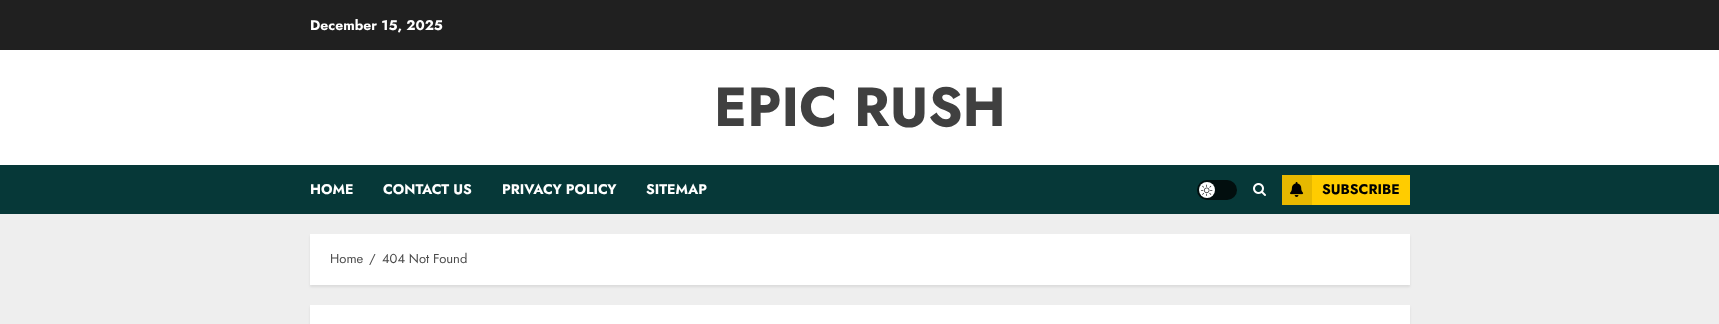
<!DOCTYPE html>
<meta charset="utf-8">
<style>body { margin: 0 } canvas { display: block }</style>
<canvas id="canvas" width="1719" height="324"></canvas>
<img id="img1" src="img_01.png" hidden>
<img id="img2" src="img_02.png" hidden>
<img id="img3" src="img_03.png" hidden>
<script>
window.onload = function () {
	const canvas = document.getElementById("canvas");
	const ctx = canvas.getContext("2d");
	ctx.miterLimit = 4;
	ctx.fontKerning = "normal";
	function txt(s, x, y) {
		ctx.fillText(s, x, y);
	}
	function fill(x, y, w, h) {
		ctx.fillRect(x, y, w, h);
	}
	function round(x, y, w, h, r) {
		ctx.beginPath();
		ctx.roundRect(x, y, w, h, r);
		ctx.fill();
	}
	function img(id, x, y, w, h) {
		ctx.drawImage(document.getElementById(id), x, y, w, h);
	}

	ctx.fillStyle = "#EEEEEE";
	fill(0, 0, 1719, 324);
	ctx.fillStyle = "#202020";
	fill(0, 0, 1719, 50);
	ctx.fillStyle = "#FFFFFF";
	fill(0, 50, 1719, 115);
	ctx.fillStyle = "#063838";
	fill(0, 165, 1719, 49);
	ctx.fillStyle = "#020E0E";
	round(1197, 180, 40, 20, 10);
	ctx.fillStyle = "#FFFFFF";
	ctx.beginPath();
	ctx.arc(1207, 190, 8, 0, Math.PI * 2);
	ctx.fill();
	img("img1", 1201, 184, 12, 12);
	img("img2", 1253, 183, 13, 13);
	ctx.fillStyle = "#FFCC00";
	fill(1312, 175, 98, 30);
	ctx.fillStyle = "#E6B800";
	fill(1282, 175, 30, 30);
	img("img3", 1290, 182, 14, 15);
	ctx.fillStyle = "rgba(0, 0, 0, 0.08)";
	ctx.filter = "blur(1px)";
	ctx.beginPath();
	ctx.rect(310, 236, 1100, 51);
	ctx.fill();
	ctx.filter = "none";
	ctx.fillStyle = "#FFFFFF";
	fill(310, 234, 1100, 51);
	ctx.fillStyle = "rgba(0, 0, 0, 0.08)";
	ctx.filter = "blur(1px)";
	ctx.beginPath();
	ctx.rect(310, 307, 1100, 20);
	ctx.fill();
	ctx.filter = "none";
	ctx.fillStyle = "#FFFFFF";
	fill(310, 305, 1100, 19);
	ctx.font = "bold 14px Jost";
	txt("December 15, 2025", 310, 30);
	ctx.font = "bold 55px Jost";
	ctx.fillStyle = "#404040";
	txt("EPIC RUSH", 714, 126);
	ctx.font = "bold 14px Jost";
	ctx.fillStyle = "#FFFFFF";
	txt("HOME", 310, 194);
	txt("CONTACT US", 383, 194);
	txt("PRIVACY POLICY", 502, 194);
	txt("SITEMAP", 646, 194);
	ctx.fillStyle = "#000000";
	txt("SUBSCRIBE", 1322, 194);
	ctx.font = "13px Jost";
	ctx.fillStyle = "#4A4A4A";
	txt("Home", 330, 263);
	txt("/", 369, 263);
	txt("404 Not Found", 382, 263);
};
</script>
